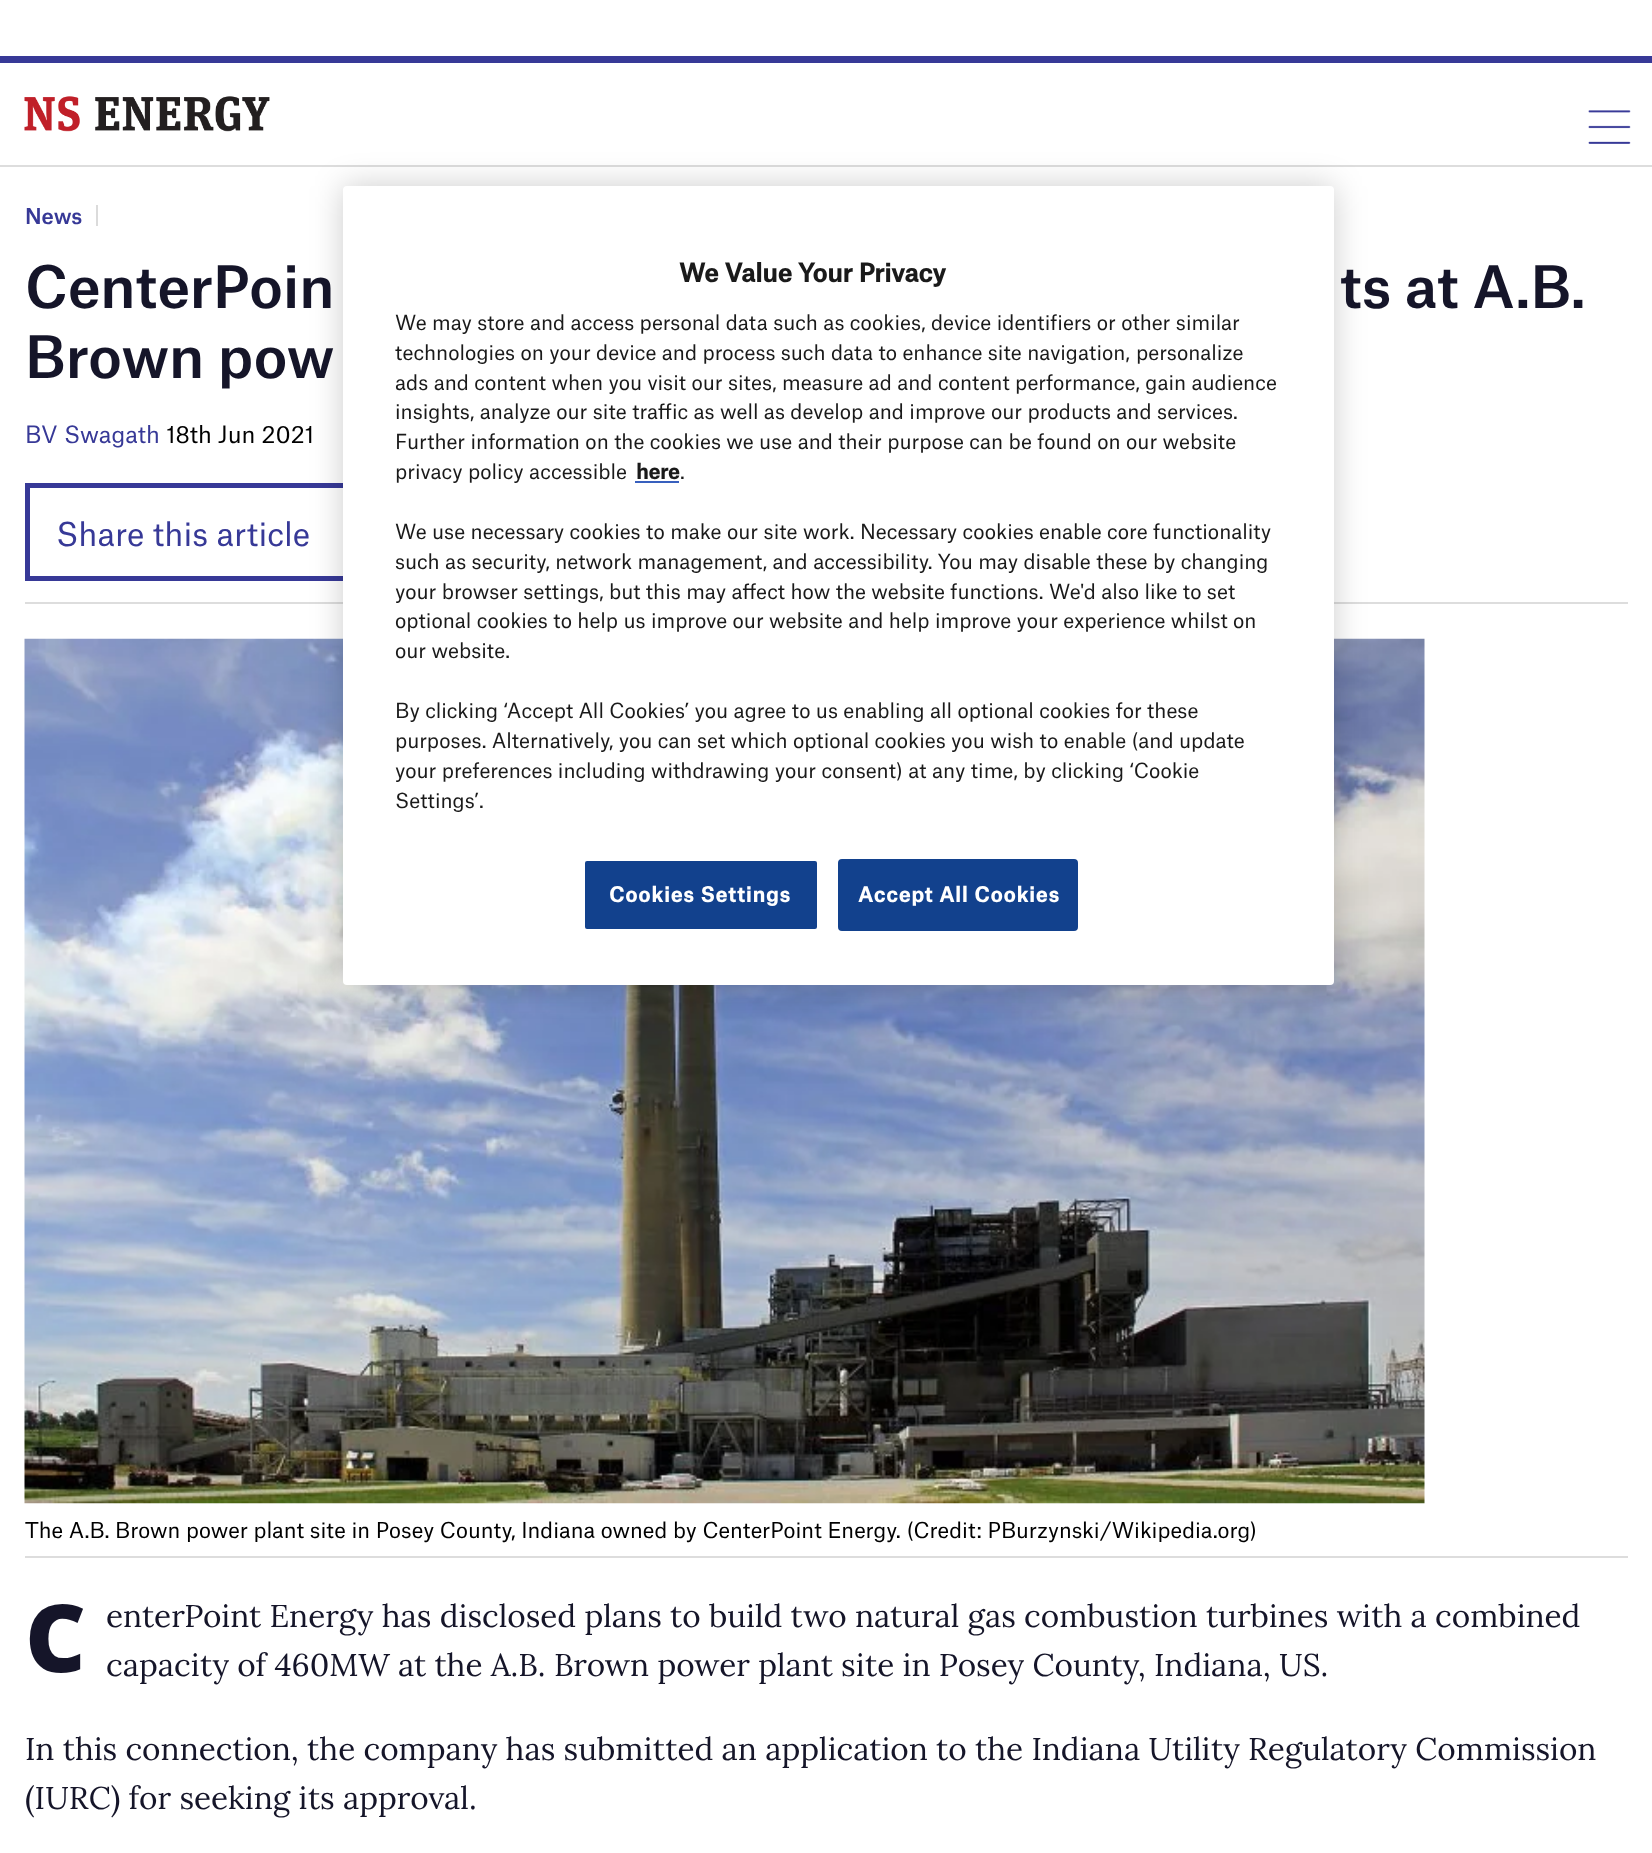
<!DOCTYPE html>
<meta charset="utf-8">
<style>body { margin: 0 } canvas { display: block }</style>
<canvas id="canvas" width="1652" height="1853"></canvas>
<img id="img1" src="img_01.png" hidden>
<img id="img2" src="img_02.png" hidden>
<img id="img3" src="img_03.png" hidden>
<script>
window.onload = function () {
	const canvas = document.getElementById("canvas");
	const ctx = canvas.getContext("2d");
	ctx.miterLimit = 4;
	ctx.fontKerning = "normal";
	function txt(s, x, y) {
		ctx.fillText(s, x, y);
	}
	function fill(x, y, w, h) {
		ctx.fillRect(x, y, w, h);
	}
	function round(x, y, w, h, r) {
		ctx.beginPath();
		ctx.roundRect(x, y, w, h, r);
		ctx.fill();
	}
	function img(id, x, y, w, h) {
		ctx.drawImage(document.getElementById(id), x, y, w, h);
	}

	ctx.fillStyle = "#FFFFFF";
	fill(0, 0, 1652, 1853);
	ctx.fillStyle = "#373997";
	fill(0, 56, 1652, 7);
	ctx.fillStyle = "#DDDDDD";
	fill(0, 165, 1652, 2);
	img("img1", 24, 96, 246, 36);
	img("img2", 1588, 110, 43, 34);
	ctx.fillStyle = "#DBDBDB";
	fill(96, 205, 2, 21);
	ctx.fillStyle = "#DDDDDD";
	fill(25, 602, 1603, 2);
	ctx.strokeStyle = "#373997";
	ctx.lineWidth = 5;
	ctx.strokeRect(27.5, 485.5, 432, 93);
	img("img3", 24, 638, 1401, 866);
	fill(25, 1556, 1603, 2);
	ctx.fillStyle = "rgba(0, 0, 0, 0.2)";
	ctx.filter = "blur(16px)";
	ctx.beginPath();
	ctx.roundRect(343, 186, 991, 799, 4);
	ctx.fill();
	ctx.filter = "none";
	ctx.fillStyle = "#FFFFFF";
	round(343, 186, 991, 799, 4);
	ctx.fillStyle = "#3860BE";
	fill(635, 481, 44, 2);
	ctx.fillStyle = "#12418D";
	ctx.beginPath();
	ctx.roundRect(584, 860, 234, 70, 3);
	ctx.fill();
	ctx.strokeStyle = "#FFFFFF";
	ctx.lineWidth = 2;
	ctx.stroke();
	ctx.beginPath();
	ctx.roundRect(839, 860, 238, 70, 3);
	ctx.fill();
	ctx.strokeStyle = "#12418D";
	ctx.stroke();
	ctx.font = "500 21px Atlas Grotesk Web";
	ctx.fillStyle = "#373997";
	txt("News", 25, 224);
	ctx.font = "500 56px Atlas Grotesk Web";
	ctx.fillStyle = "#151529";
	txt("CenterPoin", 25, 308);
	txt("ts at A.B.", 1340, 308);
	txt("Brown pow", 25, 378);
	ctx.font = "22.75px Atlas Grotesk Web";
	ctx.fillStyle = "#373997";
	txt("BV Swagath", 25, 443);
	ctx.fillStyle = "#000000";
	txt("18th Jun 2021", 166, 443);
	ctx.font = "31.5px Atlas Grotesk Web";
	ctx.fillStyle = "#373997";
	txt("Share this article", 56, 546);
	ctx.font = "21px Atlas Grotesk Web";
	ctx.fillStyle = "#000000";
	txt("The A.B. Brown power plant site in Posey County, Indiana owned by CenterPoint Energy. (Credit: PBurzynski/Wikipedia.org)", 25, 1538);
	ctx.font = "900 94px Noto Sans";
	ctx.fillStyle = "#151529";
	txt("C", 25, 1672);
	ctx.font = "31.5px Lora";
	txt("enterPoint Energy has disclosed plans to build two natural gas combustion turbines with a combined", 106, 1627);
	txt("capacity of 460MW at the A.B. Brown power plant site in Posey County, Indiana, US.", 106, 1676);
	txt("In this connection, the company has submitted an application to the Indiana Utility Regulatory Commission", 25, 1760);
	txt("(IURC) for seeking its approval.", 25, 1809);
	ctx.font = "bold 24.5px Atlas Grotesk Web";
	ctx.fillStyle = "#1A1A1A";
	txt("We Value Your Privacy", 679, 282);
	ctx.font = "19.9px Atlas Grotesk Web";
	txt("We may store and access personal data such as cookies, device identifiers or other similar", 395, 330);
	txt("technologies on your device and process such data to enhance site navigation,", 395, 360);
	txt("personalize", 1136, 360);
	txt("ads and content when you visit our sites, measure ad and content performance, gain audience", 395, 390);
	txt("insights, analyze our site traffic as well as develop and improve our products and services.", 395, 419);
	txt("Further information on the cookies we use and their purpose can be found on our website", 395, 449);
	txt("privacy policy accessible", 395, 479);
	ctx.font = "bold 19.9px Atlas Grotesk Web";
	txt("here", 636, 479);
	ctx.font = "19.9px Atlas Grotesk Web";
	txt(".", 680, 479);
	txt("We use necessary cookies to make our site work.", 395, 539);
	txt("Necessary cookies enable core functionality", 860, 539);
	txt("such as security, network management, and accessibility. You may disable these by changing", 395, 569);
	txt("your browser settings, but this may affect how the website functions.", 395, 599);
	txt("We'd also like to set", 1049, 599);
	txt("optional cookies to help us improve our website and help improve your experience whilst on", 395, 628);
	txt("our website.", 395, 658);
	txt("By clicking ‘Accept All Cookies’ you agree to us enabling all optional cookies for these", 395, 718);
	txt("purposes. Alternatively, you can set which optional cookies you wish to enable (and update", 395, 748);
	txt("your preferences including withdrawing your consent) at any time, by clicking ‘Cookie", 395, 778);
	txt("Settings’.", 395, 808);
	ctx.letterSpacing = "1px";
	ctx.font = "bold 19.9px Atlas Grotesk Web";
	ctx.fillStyle = "#FFFFFF";
	txt("Cookies Settings", 609, 902);
	txt("Accept All Cookies", 858, 902);
};
</script>
